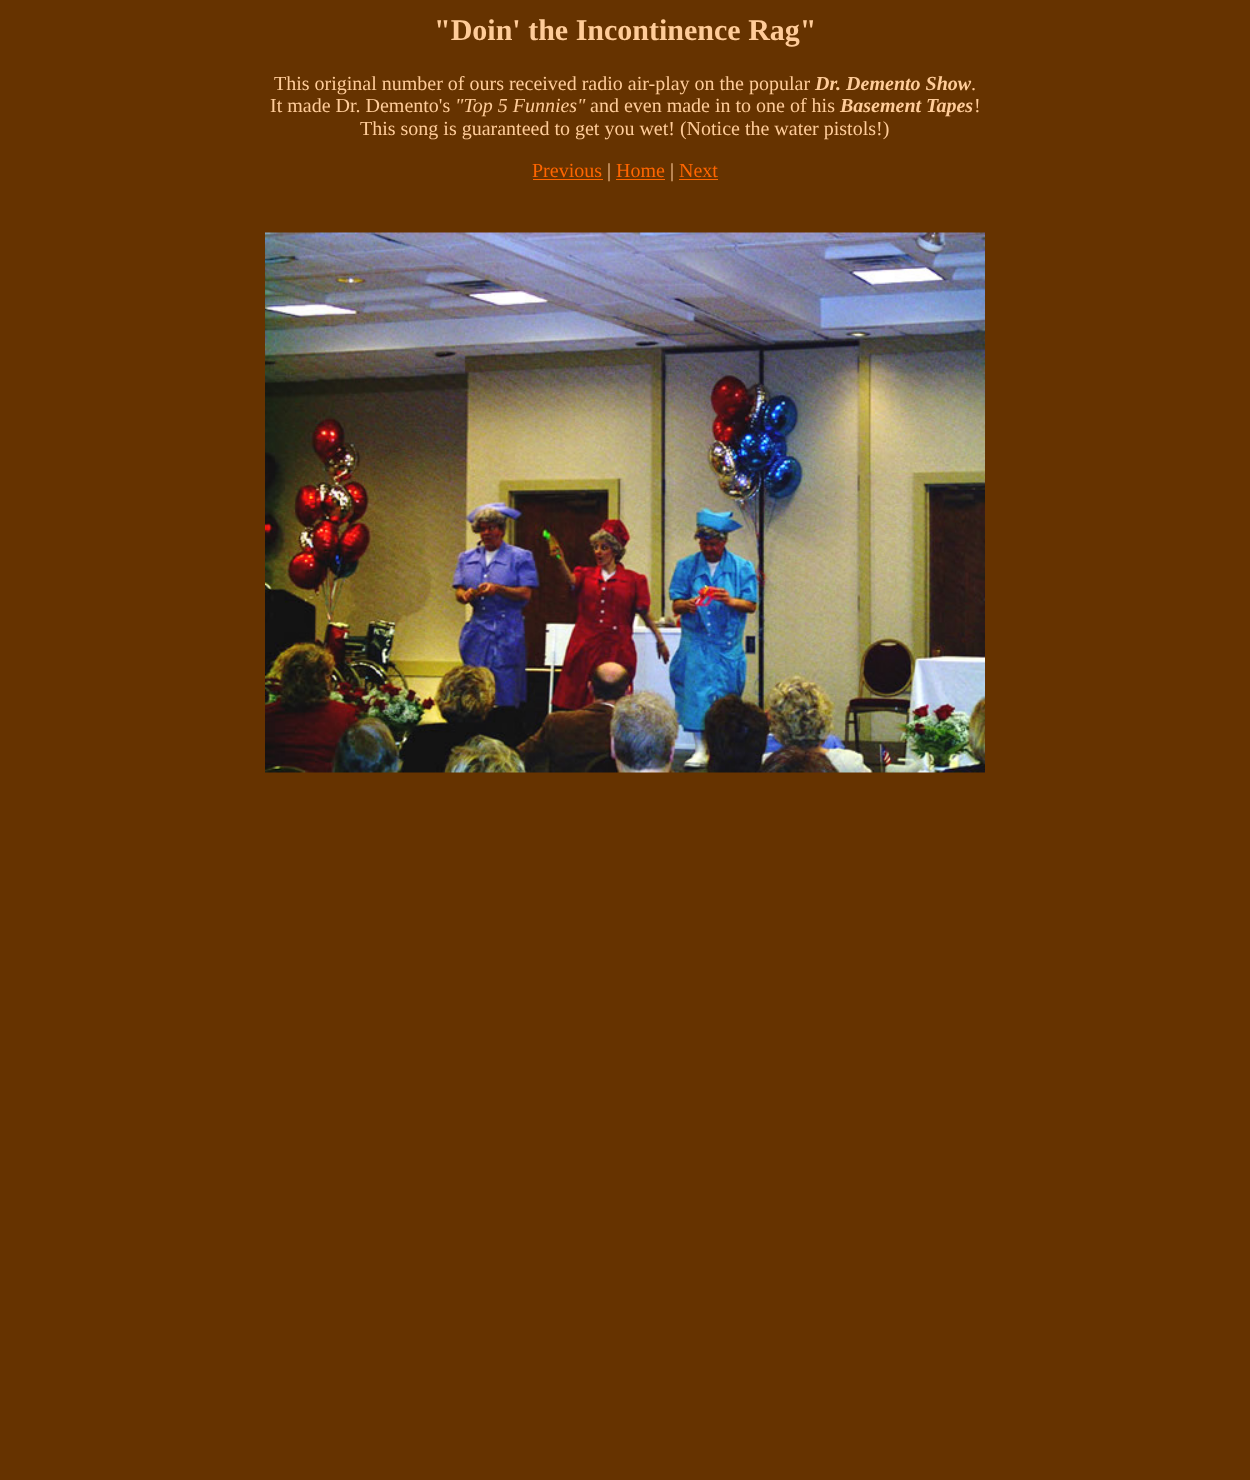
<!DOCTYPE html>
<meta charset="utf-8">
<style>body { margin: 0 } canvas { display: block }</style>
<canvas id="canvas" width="1250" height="1480"></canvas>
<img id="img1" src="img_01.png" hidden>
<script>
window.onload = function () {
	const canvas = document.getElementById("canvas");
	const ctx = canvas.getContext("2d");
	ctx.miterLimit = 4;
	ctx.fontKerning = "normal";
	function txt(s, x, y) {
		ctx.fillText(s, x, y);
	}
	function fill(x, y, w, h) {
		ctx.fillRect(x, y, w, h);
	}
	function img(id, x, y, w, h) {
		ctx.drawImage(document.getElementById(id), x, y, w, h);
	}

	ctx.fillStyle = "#663300";
	fill(0, 0, 1250, 1480);
	ctx.fillStyle = "#FF6600";
	fill(533, 179, 70, 1);
	fill(616, 179, 49, 1);
	fill(679, 179, 39, 1);
	img("img1", 265, 232, 720, 541);
	ctx.font = "bold 30px Liberation Serif";
	ctx.fillStyle = "#FFCC99";
	txt("\"Doin' the Incontinence Rag\"", 434, 40);
	ctx.font = "20px Liberation Serif";
	txt("This original number of ours received radio air-play on the popular", 274, 90);
	ctx.font = "italic bold 20px Liberation Serif";
	txt("Dr. Demento Show", 815, 90);
	ctx.font = "20px Liberation Serif";
	txt(".", 971, 90);
	txt("It made Dr. Demento's", 270, 112);
	ctx.font = "italic 20px Liberation Serif";
	txt("\"Top 5 Funnies\"", 455, 112);
	ctx.font = "20px Liberation Serif";
	txt("and even made in to one of his", 590, 112);
	ctx.font = "italic bold 20px Liberation Serif";
	txt("Basement Tapes", 840, 112);
	ctx.font = "20px Liberation Serif";
	txt("!", 974, 112);
	txt("This song is guaranteed to get you wet! (Notice the water pistols!)", 360, 135);
	ctx.fillStyle = "#FF6600";
	txt("Previous", 532, 177);
	ctx.fillStyle = "#FFCC99";
	txt("|", 607, 177);
	ctx.fillStyle = "#FF6600";
	txt("Home", 616, 177);
	ctx.fillStyle = "#FFCC99";
	txt("|", 670, 177);
	ctx.fillStyle = "#FF6600";
	txt("Next", 679, 177);
};
</script>
